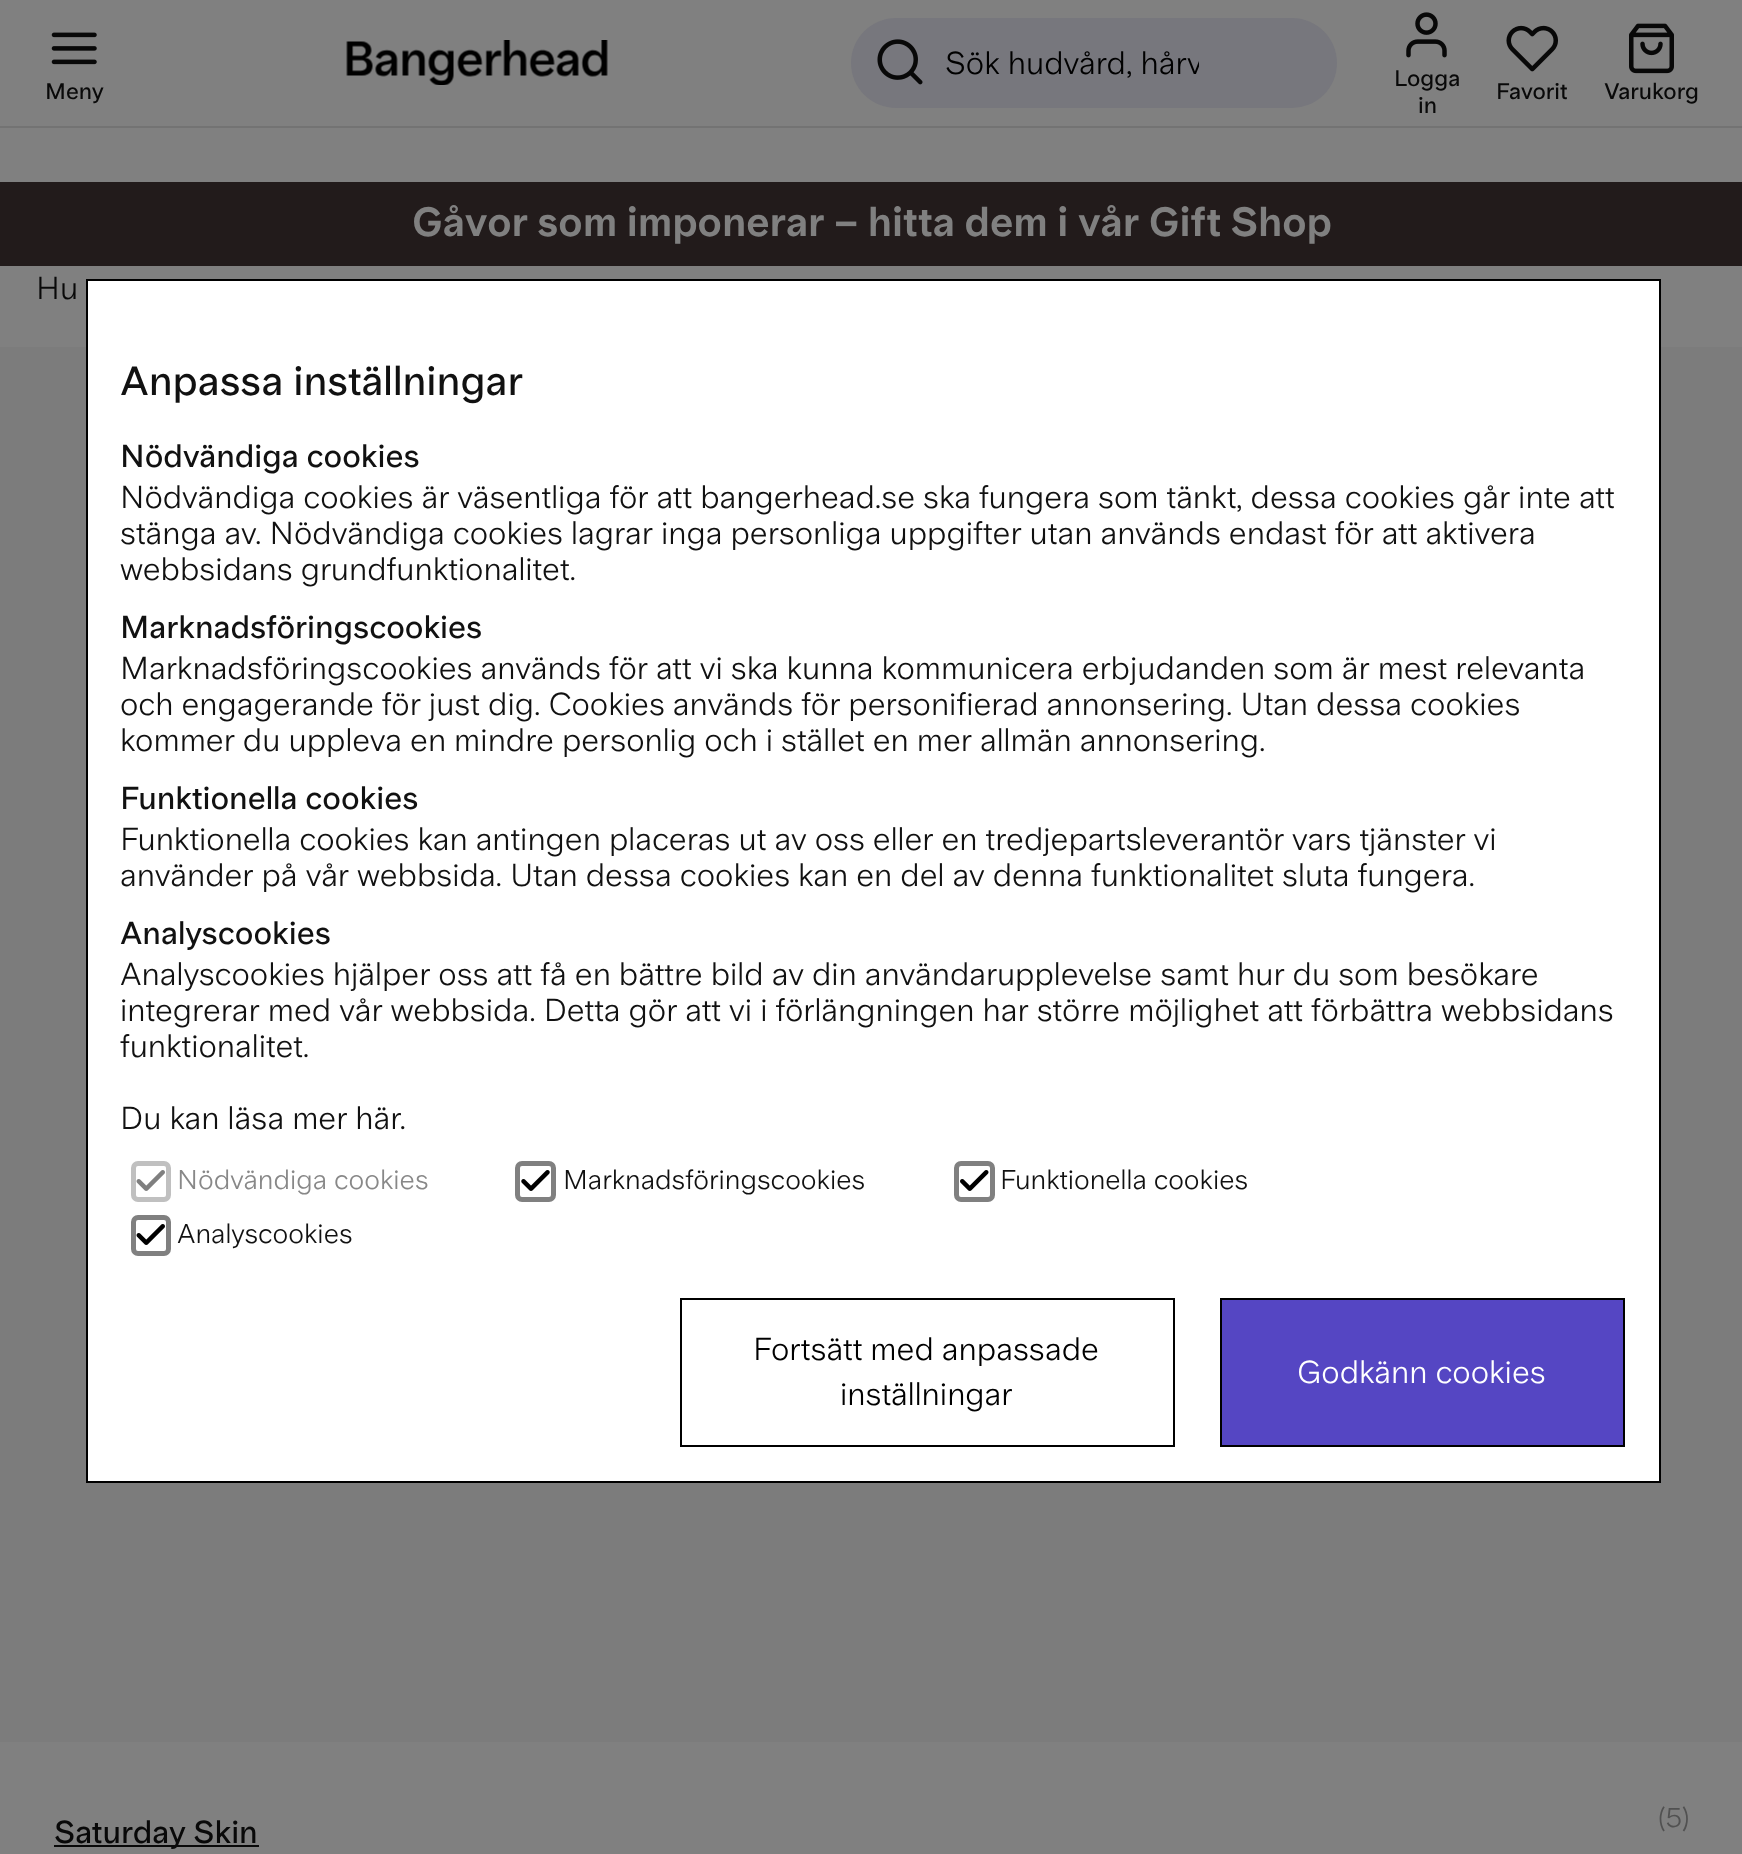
<!DOCTYPE html>
<meta charset="utf-8">
<style>body { margin: 0 } canvas { display: block }</style>
<canvas id="canvas" width="1742" height="1854"></canvas>
<img id="img1" src="img_01.png" hidden>
<img id="img2" src="img_02.png" hidden>
<img id="img3" src="img_03.png" hidden>
<img id="img4" src="img_04.png" hidden>
<img id="img5" src="img_05.png" hidden>
<img id="img6" src="img_06.png" hidden>
<img id="img7" src="img_07.png" hidden>
<img id="img8" src="img_08.png" hidden>
<img id="img9" src="img_09.png" hidden>
<img id="img10" src="img_10.png" hidden>
<script>
window.onload = function () {
	const canvas = document.getElementById("canvas");
	const ctx = canvas.getContext("2d");
	ctx.miterLimit = 4;
	ctx.fontKerning = "normal";
	function txt(s, x, y) {
		ctx.fillText(s, x, y);
	}
	function fill(x, y, w, h) {
		ctx.fillRect(x, y, w, h);
	}
	function round(x, y, w, h, r) {
		ctx.beginPath();
		ctx.roundRect(x, y, w, h, r);
		ctx.fill();
	}
	function img(id, x, y, w, h) {
		ctx.drawImage(document.getElementById(id), x, y, w, h);
	}

	ctx.fillStyle = "#808080";
	fill(0, 0, 1742, 1854);
	ctx.fillStyle = "#737373";
	fill(0, 126, 1742, 2);
	img("img1", 346, 40, 262, 45);
	ctx.fillStyle = "#77777D";
	round(851, 18, 486, 90, 45);
	img("img2", 877, 39, 46, 46);
	img("img3", 51, 32, 46, 33);
	img("img4", 1406, 12, 41, 46);
	img("img5", 1506, 25, 52, 47);
	img("img6", 1629, 23, 45, 51);
	ctx.fillStyle = "#221B1B";
	fill(0, 182, 1742, 84);
	ctx.fillStyle = "#7C7C7C";
	fill(0, 347, 1742, 1395);
	ctx.fillStyle = "#090909";
	fill(54, 1845, 205, 2);
	ctx.fillStyle = "#FFFFFF";
	ctx.beginPath();
	ctx.rect(87, 280, 1573, 1202);
	ctx.fill();
	ctx.strokeStyle = "#000000";
	ctx.lineWidth = 2;
	ctx.stroke();
	ctx.beginPath();
	ctx.roundRect(133.5, 1163.5, 35, 36, 4.5);
	ctx.strokeStyle = "#C0C0C0";
	ctx.lineWidth = 5;
	ctx.stroke();
	img("img7", 136, 1170, 29, 21);
	img("img8", 521, 1170, 29, 21);
	ctx.beginPath();
	ctx.roundRect(517.5, 1163.5, 36, 36, 4.5);
	ctx.strokeStyle = "#808080";
	ctx.stroke();
	img("img9", 960, 1170, 29, 21);
	ctx.beginPath();
	ctx.roundRect(956.5, 1163.5, 36, 36, 4.5);
	ctx.stroke();
	img("img10", 136, 1224, 29, 21);
	ctx.beginPath();
	ctx.roundRect(133.5, 1217.5, 35, 36, 4.5);
	ctx.stroke();
	ctx.strokeStyle = "#000000";
	ctx.lineWidth = 2;
	ctx.strokeRect(681, 1299, 493, 147);
	ctx.fillStyle = "#5546C3";
	ctx.beginPath();
	ctx.rect(1221, 1299, 403, 147);
	ctx.fill();
	ctx.stroke();
	ctx.save();
	ctx.beginPath();
	ctx.rect(945, 45, 254, 36);
	ctx.clip();
	ctx.font = "31.5px 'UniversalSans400'";
	ctx.fillStyle = "#000000";
	txt("Sök hudvård, hårv", 945, 74);
	ctx.restore();
	ctx.font = "600 22.5px 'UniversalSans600'";
	ctx.fillStyle = "#090909";
	txt("Meny", 45, 99);
	txt("Logga", 1394, 86);
	txt("in", 1418, 113);
	txt("Favorit", 1496, 99);
	txt("Varukorg", 1604, 99);
	ctx.font = "800 40.5px 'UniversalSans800'";
	ctx.fillStyle = "#808080";
	txt("Gåvor som imponerar – hitta dem i vår Gift Shop", 412, 236);
	ctx.font = "31.5px 'UniversalSans400'";
	ctx.fillStyle = "#090909";
	txt("Hu", 36, 299);
	ctx.font = "600 31.5px 'UniversalSans600'";
	txt("Saturday Skin", 54, 1843);
	ctx.font = "27px 'UniversalSans400'";
	ctx.fillStyle = "#515151";
	txt("(5)", 1658, 1827);
	ctx.font = "600 40.5px 'UniversalSans600'";
	ctx.fillStyle = "#111111";
	txt("Anpassa inställningar", 120, 395);
	ctx.font = "600 31.5px 'UniversalSans600'";
	txt("Nödvändiga cookies", 120, 467);
	ctx.font = "31.5px 'UniversalSans400'";
	txt("Nödvändiga cookies är väsentliga för att bangerhead.se ska fungera som tänkt, dessa cookies går inte att", 120, 508);
	txt("stänga av. Nödvändiga cookies lagrar inga personliga uppgifter utan används endast för att aktivera", 120, 544);
	txt("webbsidans grundfunktionalitet.", 120, 580);
	ctx.font = "600 31.5px 'UniversalSans600'";
	txt("Marknadsföringscookies", 120, 638);
	ctx.font = "31.5px 'UniversalSans400'";
	txt("Marknadsföringscookies används för att vi ska kunna kommunicera erbjudanden som är mest relevanta", 120, 679);
	txt("och engagerande för just dig. Cookies används för personifierad annonsering. Utan dessa cookies", 120, 715);
	txt("kommer du uppleva en mindre personlig och i stället en mer allmän annonsering.", 120, 751);
	ctx.font = "600 31.5px 'UniversalSans600'";
	txt("Funktionella cookies", 120, 809);
	ctx.font = "31.5px 'UniversalSans400'";
	txt("Funktionella cookies kan antingen placeras ut av oss eller en tredjepartsleverantör vars tjänster vi", 120, 850);
	txt("använder på vår webbsida. Utan dessa cookies kan en del av denna funktionalitet sluta fungera.", 120, 886);
	ctx.font = "600 31.5px 'UniversalSans600'";
	txt("Analyscookies", 120, 944);
	ctx.font = "31.5px 'UniversalSans400'";
	txt("Analyscookies hjälper oss att få en bättre bild av din användarupplevelse samt hur du som besökare", 120, 985);
	txt("integrerar med vår webbsida. Detta gör att vi i förlängningen har större möjlighet att förbättra webbsidans", 120, 1021);
	txt("funktionalitet.", 120, 1057);
	txt("Du kan läsa mer här.", 120, 1129);
	ctx.font = "27px 'UniversalSans400'";
	ctx.fillStyle = "#888888";
	txt("Nödvändiga cookies", 177, 1189);
	ctx.fillStyle = "#111111";
	txt("Marknadsföringscookies", 563, 1189);
	txt("Funktionella cookies", 1000, 1189);
	txt("Analyscookies", 177, 1243);
	ctx.font = "31.5px 'UniversalSans400'";
	ctx.fillStyle = "#000000";
	txt("Fortsätt med anpassade", 753, 1360);
	txt("inställningar", 840, 1405);
	ctx.fillStyle = "#FFFFFF";
	txt("Godkänn cookies", 1297, 1383);
};
</script>
